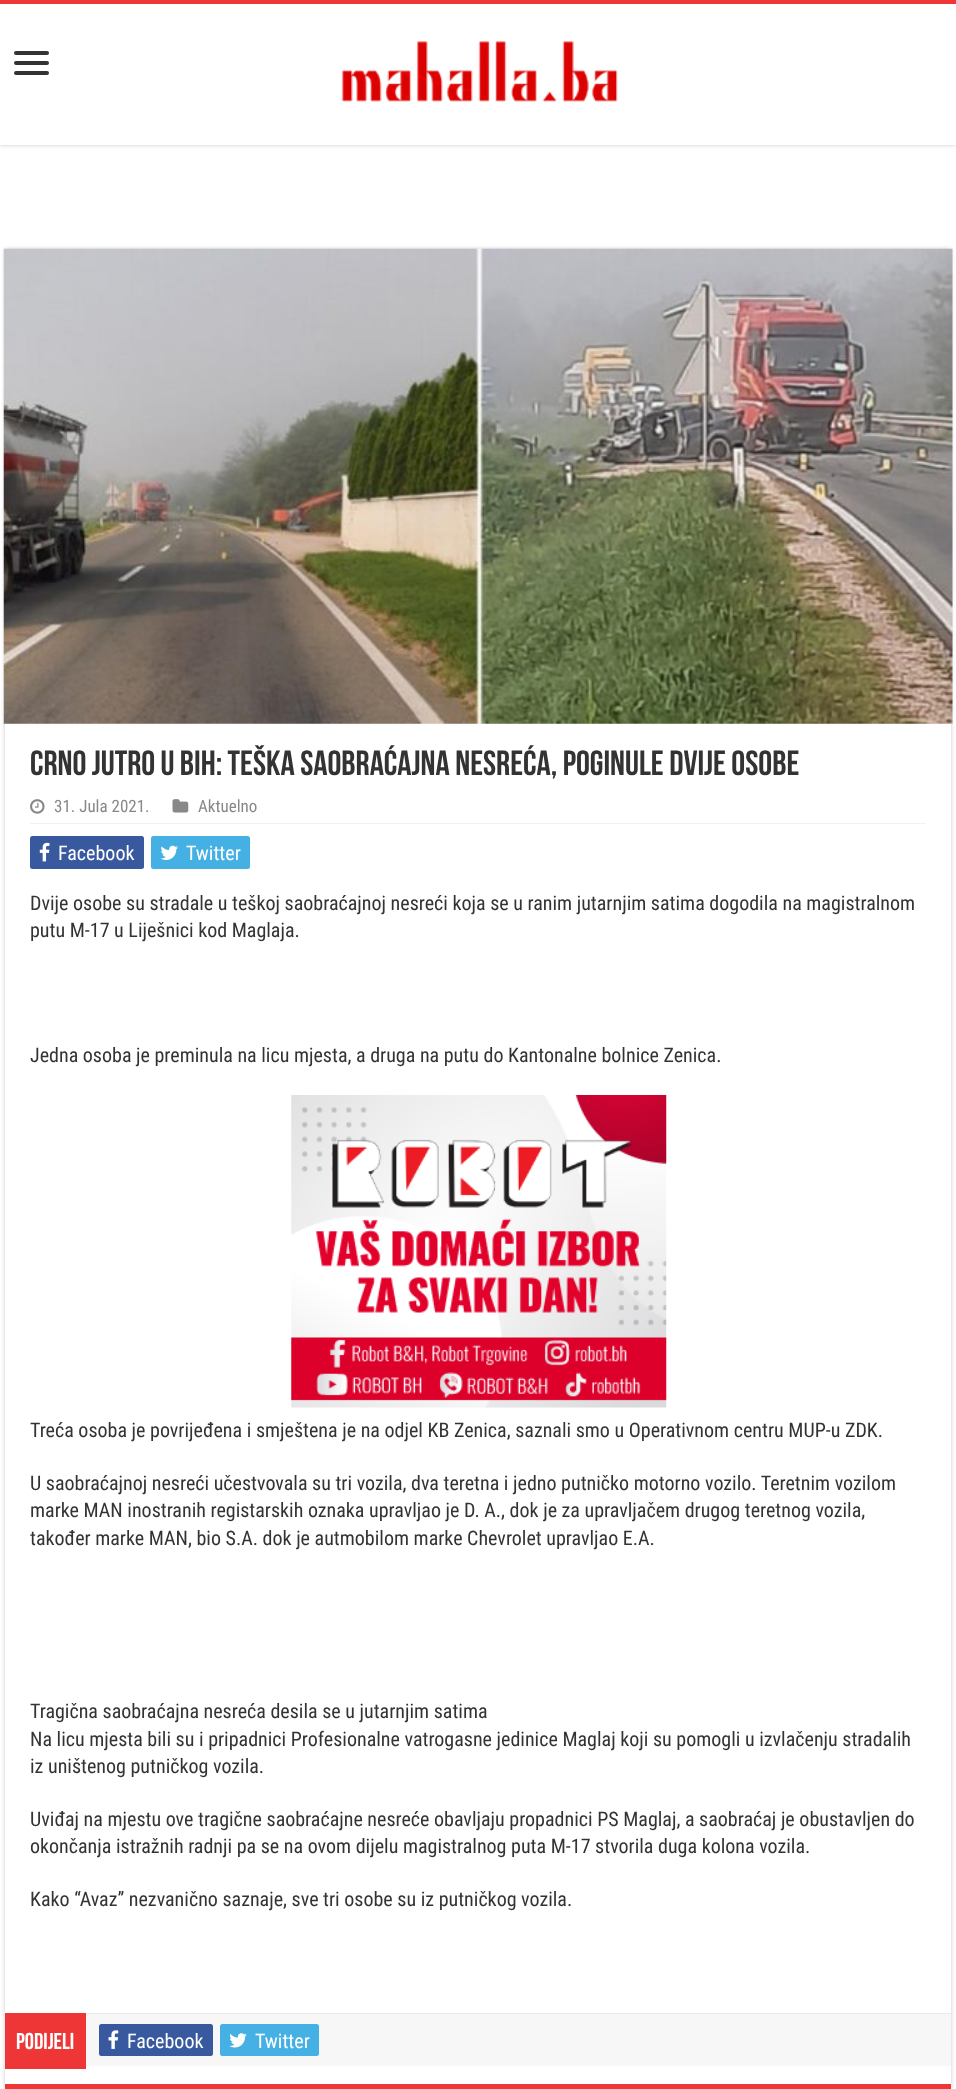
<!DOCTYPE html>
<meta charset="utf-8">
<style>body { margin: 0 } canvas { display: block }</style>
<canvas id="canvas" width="956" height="2089"></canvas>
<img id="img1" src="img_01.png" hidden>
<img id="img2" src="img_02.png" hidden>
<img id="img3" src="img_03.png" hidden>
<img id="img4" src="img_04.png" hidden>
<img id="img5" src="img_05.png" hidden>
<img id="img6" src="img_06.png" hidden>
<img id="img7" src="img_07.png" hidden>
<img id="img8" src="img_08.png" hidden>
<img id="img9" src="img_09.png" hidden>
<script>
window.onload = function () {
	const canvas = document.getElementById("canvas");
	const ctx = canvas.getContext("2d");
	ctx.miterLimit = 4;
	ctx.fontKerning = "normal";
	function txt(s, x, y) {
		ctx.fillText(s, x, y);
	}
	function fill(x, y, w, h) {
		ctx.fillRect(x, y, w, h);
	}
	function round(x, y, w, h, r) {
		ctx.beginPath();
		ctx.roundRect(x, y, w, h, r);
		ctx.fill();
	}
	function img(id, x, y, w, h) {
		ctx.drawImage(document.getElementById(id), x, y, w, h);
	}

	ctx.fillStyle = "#FFFFFF";
	fill(0, 0, 956, 2089);
	ctx.save();
	ctx.beginPath();
	ctx.rect(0, 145, 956, 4);
	ctx.clip();
	ctx.fillStyle = "#CACACA";
	ctx.filter = "blur(2px)";
	ctx.beginPath();
	ctx.rect(0, 0, 956, 145);
	ctx.fill();
	ctx.filter = "none";
	ctx.restore();
	ctx.fillStyle = "#EF3636";
	fill(0, 0, 956, 4);
	ctx.fillStyle = "#333333";
	round(14, 51, 35, 4, 2);
	round(14, 61, 35, 4, 2);
	round(14, 71, 35, 4, 2);
	img("img1", 341, 41, 277, 61);
	ctx.fillStyle = "#CACACA";
	ctx.filter = "blur(2px)";
	ctx.beginPath();
	ctx.rect(5, 249, 946, 1840);
	ctx.fill();
	ctx.filter = "none";
	ctx.fillStyle = "#FFFFFF";
	fill(5, 723, 946, 1361);
	ctx.fillStyle = "#EF3636";
	fill(5, 2084, 946, 5);
	img("img2", 3, 248, 950, 476);
	ctx.fillStyle = "#F2F2F2";
	fill(30, 823, 896, 1);
	img("img3", 30, 799, 15, 15);
	img("img4", 172, 799, 17, 14);
	ctx.fillStyle = "#39599F";
	round(30, 836, 114, 33, 2.5);
	img("img5", 39, 842, 11, 20);
	ctx.fillStyle = "#45B0E3";
	round(151, 836, 99, 33, 2.5);
	img("img6", 160, 845, 18, 15);
	img("img7", 291, 1095, 376, 313);
	ctx.fillStyle = "#F7F7F7";
	fill(86, 2014, 865, 52);
	ctx.fillStyle = "#EAEAEA";
	fill(86, 2013, 865, 1);
	ctx.fillStyle = "#EF3636";
	fill(5, 2013, 81, 56);
	ctx.fillStyle = "#39599F";
	round(99, 2024, 114, 32, 2.5);
	img("img8", 108, 2030, 11, 19);
	ctx.fillStyle = "#45B0E3";
	round(220, 2024, 99, 32, 2.5);
	img("img9", 229, 2033, 18, 15);
	ctx.font = "bold 35px Bebas Neue";
	ctx.fillStyle = "#333333";
	txt("Crno jutro u BiH: Teška saobraćajna nesreća, poginule dvije osobe", 30, 775);
	ctx.font = "17px Roboto Condensed";
	ctx.fillStyle = "#888888";
	txt("31. Jula 2021.", 54, 812);
	txt("Aktuelno", 198, 812);
	ctx.font = "20px Roboto Condensed";
	ctx.fillStyle = "#FFFFFF";
	txt("Facebook", 58, 860);
	txt("Twitter", 186, 860);
	ctx.fillStyle = "#333333";
	txt("Dvije osobe su stradale u teškoj saobraćajnoj nesreći koja se u ranim jutarnjim satima dogodila na magistralnom", 30, 910);
	txt("putu M-17 u Liješnici kod Maglaja.", 30, 937);
	txt("Jedna osoba je preminula na licu mjesta, a druga na putu do Kantonalne bolnice Zenica.", 30, 1062);
	txt("Treća osoba je povrijeđena i smještena je na odjel KB Zenica, saznali smo u Operativnom centru MUP-u ZDK.", 30, 1437);
	txt("U saobraćajnoj nesreći učestvovala su tri vozila, dva teretna i jedno putničko motorno vozilo. Teretnim vozilom", 30, 1490);
	txt("marke MAN inostranih registarskih oznaka upravljao je D. A., dok je za upravljačem drugog teretnog vozila,", 30, 1517);
	txt("također marke MAN, bio S.A. dok je autmobilom marke Chevrolet upravljao E.A.", 30, 1545);
	txt("Tragična saobraćajna nesreća desila se u jutarnjim satima", 30, 1718);
	txt("Na licu mjesta bili su i pripadnici Profesionalne vatrogasne jedinice Maglaj koji su pomogli u izvlačenju stradalih", 30, 1746);
	txt("iz uništenog putničkog vozila.", 30, 1773);
	txt("Uviđaj na mjestu ove tragične saobraćajne nesreće obavljaju propadnici PS Maglaj, a saobraćaj je obustavljen do", 30, 1826);
	txt("okončanja istražnih radnji pa se na ovom dijelu magistralnog puta M-17 stvorila duga kolona vozila.", 30, 1853);
	txt("Kako “Avaz” nezvanično saznaje, sve tri osobe su iz putničkog vozila.", 30, 1906);
	ctx.font = "bold 23px Bebas Neue";
	ctx.fillStyle = "#FFFFFF";
	txt("Podijeli", 16, 2049);
	ctx.font = "20px Roboto Condensed";
	txt("Facebook", 127, 2048);
	txt("Twitter", 255, 2048);
};
</script>
